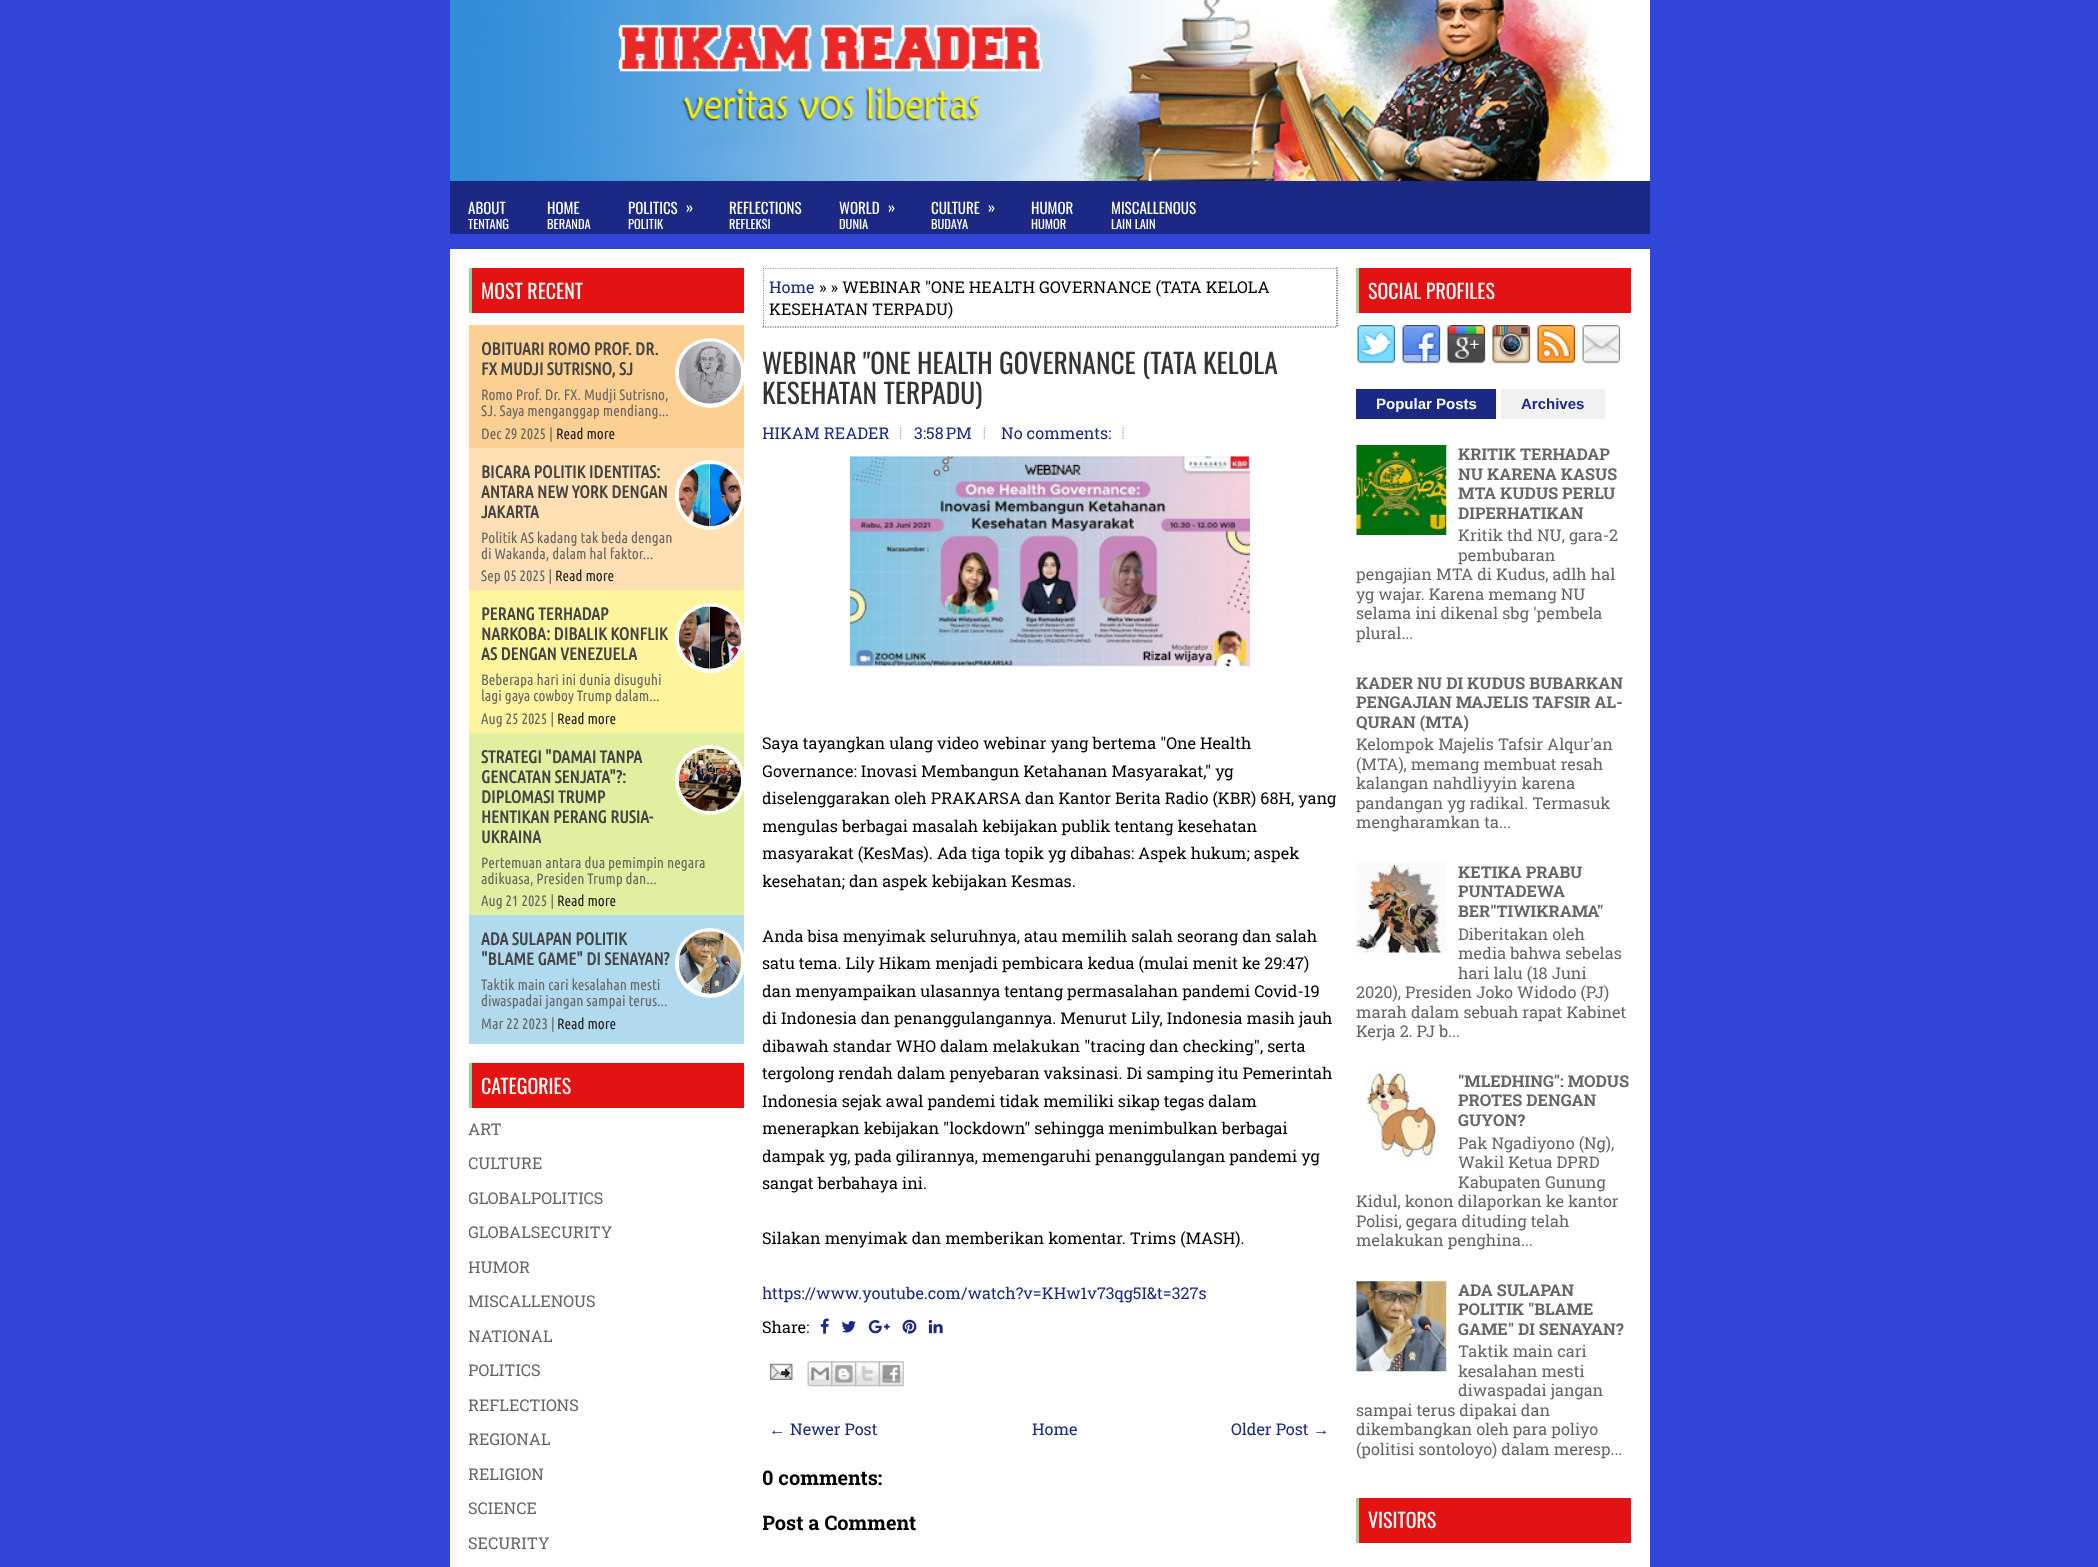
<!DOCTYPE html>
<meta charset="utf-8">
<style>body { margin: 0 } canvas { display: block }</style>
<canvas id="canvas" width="2098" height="1567"></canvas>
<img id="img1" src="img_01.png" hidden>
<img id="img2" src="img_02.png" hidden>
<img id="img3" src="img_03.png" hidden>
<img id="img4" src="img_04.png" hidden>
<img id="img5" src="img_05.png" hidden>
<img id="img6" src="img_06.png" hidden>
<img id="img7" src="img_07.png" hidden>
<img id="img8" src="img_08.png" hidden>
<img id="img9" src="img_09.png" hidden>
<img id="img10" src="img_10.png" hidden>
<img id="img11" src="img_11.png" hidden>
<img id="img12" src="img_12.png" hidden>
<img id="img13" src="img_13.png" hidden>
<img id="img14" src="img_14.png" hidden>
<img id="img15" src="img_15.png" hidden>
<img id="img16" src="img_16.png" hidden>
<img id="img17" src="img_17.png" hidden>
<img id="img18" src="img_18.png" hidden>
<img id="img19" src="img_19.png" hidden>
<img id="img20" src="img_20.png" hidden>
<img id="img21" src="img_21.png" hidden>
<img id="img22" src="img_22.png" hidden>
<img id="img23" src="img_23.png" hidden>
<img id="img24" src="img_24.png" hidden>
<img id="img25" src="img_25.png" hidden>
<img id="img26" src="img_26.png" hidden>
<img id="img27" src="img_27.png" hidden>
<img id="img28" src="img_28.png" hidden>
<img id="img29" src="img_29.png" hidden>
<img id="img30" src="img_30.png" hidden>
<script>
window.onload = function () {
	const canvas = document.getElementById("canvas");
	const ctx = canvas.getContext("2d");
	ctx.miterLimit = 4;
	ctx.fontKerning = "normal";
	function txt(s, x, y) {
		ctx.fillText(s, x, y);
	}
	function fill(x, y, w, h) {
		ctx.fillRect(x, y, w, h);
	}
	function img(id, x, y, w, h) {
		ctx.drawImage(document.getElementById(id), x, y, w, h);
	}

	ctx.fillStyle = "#3146D8";
	fill(0, 0, 2098, 1567);
	img("img1", 450, 0, 1200, 181);
	ctx.fillStyle = "#1B2884";
	fill(450, 181, 1200, 53);
	ctx.fillStyle = "#FFFFFF";
	fill(450, 249, 1200, 1318);
	ctx.fillStyle = "#E41212";
	fill(472, 268, 272, 45);
	ctx.fillStyle = "#95D396";
	fill(469, 268, 3, 45);
	ctx.fillStyle = "#FCD092";
	fill(469, 325, 275, 123);
	ctx.save();
	ctx.beginPath();
	ctx.rect(469, 268, 275, 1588);
	ctx.clip();
	ctx.fillStyle = "#FFFFFF";
	ctx.beginPath();
	ctx.arc(710, 373, 35, 0, Math.PI * 2);
	ctx.fill();
	ctx.restore();
	img("img2", 678, 341, 64, 63);
	ctx.fillStyle = "#FFE0B4";
	fill(469, 448, 275, 142);
	ctx.save();
	ctx.beginPath();
	ctx.rect(469, 268, 275, 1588);
	ctx.clip();
	ctx.fillStyle = "#FFFFFF";
	ctx.beginPath();
	ctx.arc(710, 495, 35, 0, Math.PI * 2);
	ctx.fill();
	ctx.restore();
	img("img3", 678, 463, 64, 64);
	ctx.fillStyle = "#FFF59E";
	fill(469, 590, 275, 143);
	ctx.save();
	ctx.beginPath();
	ctx.rect(469, 268, 275, 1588);
	ctx.clip();
	ctx.fillStyle = "#FFFFFF";
	ctx.beginPath();
	ctx.arc(710, 638, 35, 0, Math.PI * 2);
	ctx.fill();
	ctx.restore();
	img("img4", 678, 606, 64, 63);
	ctx.fillStyle = "#E1EFA0";
	fill(469, 733, 275, 182);
	ctx.save();
	ctx.beginPath();
	ctx.rect(469, 268, 275, 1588);
	ctx.clip();
	ctx.fillStyle = "#FFFFFF";
	ctx.beginPath();
	ctx.arc(710, 780, 35, 0, Math.PI * 2);
	ctx.fill();
	ctx.restore();
	img("img5", 678, 748, 64, 64);
	ctx.fillStyle = "#B1DAEF";
	fill(469, 915, 275, 129);
	ctx.save();
	ctx.beginPath();
	ctx.rect(469, 268, 275, 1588);
	ctx.clip();
	ctx.fillStyle = "#FFFFFF";
	ctx.beginPath();
	ctx.arc(710, 963, 35, 0, Math.PI * 2);
	ctx.fill();
	ctx.restore();
	img("img6", 678, 931, 64, 63);
	ctx.fillStyle = "#E41212";
	fill(472, 1063, 272, 45);
	ctx.fillStyle = "#95D396";
	fill(469, 1063, 3, 45);
	ctx.save();
	ctx.beginPath();
	ctx.rect(763, 268, 575, 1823);
	ctx.clip();
	ctx.beginPath();
	ctx.moveTo(762.5, 268);
	ctx.lineTo(1337.5, 268);
	ctx.strokeStyle = "#444444";
	ctx.lineWidth = 1.2;
	ctx.setLineDash([1.25, 1.25]);
	ctx.stroke();
	ctx.restore();
	ctx.beginPath();
	ctx.moveTo(1337, 267.5);
	ctx.lineTo(1337, 327.5);
	ctx.strokeStyle = "#444444";
	ctx.lineWidth = 1.2;
	ctx.setLineDash([1.25, 1.25]);
	ctx.stroke();
	ctx.beginPath();
	ctx.moveTo(762.5, 327);
	ctx.lineTo(1337.5, 327);
	ctx.stroke();
	ctx.save();
	ctx.beginPath();
	ctx.rect(763, 268, 575, 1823);
	ctx.clip();
	ctx.beginPath();
	ctx.moveTo(763, 267.5);
	ctx.lineTo(763, 327.5);
	ctx.stroke();
	ctx.restore();
	img("img7", 900, 427, 2, 12);
	img("img8", 983, 427, 2, 12);
	img("img9", 1122, 427, 2, 12);
	img("img10", 850, 456, 400, 211);
	img("img11", 820, 1318, 9, 16);
	img("img12", 841, 1320, 15, 13);
	img("img13", 868, 1320, 22, 14);
	img("img14", 902, 1319, 15, 15);
	img("img15", 928, 1319, 15, 15);
	img("img16", 770, 1363, 23, 17);
	img("img17", 807, 1361, 26, 26);
	img("img18", 831, 1361, 26, 26);
	img("img19", 855, 1361, 25, 26);
	img("img20", 878, 1361, 26, 26);
	ctx.fillStyle = "#E41212";
	fill(1359, 268, 272, 45);
	ctx.fillStyle = "#95D396";
	fill(1356, 268, 3, 45);
	img("img21", 1357, 325, 39, 39);
	img("img22", 1402, 325, 39, 39);
	img("img23", 1447, 325, 39, 39);
	img("img24", 1492, 325, 39, 39);
	img("img25", 1537, 325, 39, 39);
	img("img26", 1582, 325, 39, 39);
	ctx.fillStyle = "#1B2884";
	fill(1356, 389, 140, 30);
	ctx.fillStyle = "#F1F1F1";
	fill(1501, 389, 104, 30);
	img("img27", 1356, 445, 91, 90);
	img("img28", 1356, 862, 90, 91);
	img("img29", 1366, 1071, 71, 90);
	img("img30", 1356, 1281, 91, 91);
	ctx.fillStyle = "#E41212";
	fill(1359, 1498, 272, 45);
	ctx.fillStyle = "#95D396";
	fill(1356, 1498, 3, 45);
	ctx.font = "15px Oswald";
	ctx.fillStyle = "#FFFFFF";
	txt("ABOUT", 468, 214);
	ctx.font = "12.5px Oswald";
	txt("TENTANG", 468, 229);
	ctx.font = "15px Oswald";
	txt("HOME", 547, 214);
	ctx.font = "12.5px Oswald";
	txt("BERANDA", 547, 229);
	ctx.font = "15px Oswald";
	txt("POLITICS", 628, 214);
	txt("»", 686, 213);
	ctx.font = "12.5px Oswald";
	txt("POLITIK", 628, 229);
	ctx.font = "15px Oswald";
	txt("REFLECTIONS", 729, 214);
	ctx.font = "12.5px Oswald";
	txt("REFLEKSI", 729, 229);
	ctx.font = "15px Oswald";
	txt("WORLD", 839, 214);
	txt("»", 888, 213);
	ctx.font = "12.5px Oswald";
	txt("DUNIA", 839, 229);
	ctx.font = "15px Oswald";
	txt("CULTURE", 931, 214);
	txt("»", 988, 213);
	ctx.font = "12.5px Oswald";
	txt("BUDAYA", 931, 229);
	ctx.font = "15px Oswald";
	txt("HUMOR", 1031, 214);
	ctx.font = "12.5px Oswald";
	txt("HUMOR", 1031, 229);
	ctx.font = "15px Oswald";
	txt("MISCALLENOUS", 1111, 214);
	ctx.font = "12.5px Oswald";
	txt("LAIN LAIN", 1111, 229);
	ctx.font = "20px Oswald";
	txt("MOST RECENT", 481, 299);
	ctx.font = "bold 17.5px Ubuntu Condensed";
	ctx.fillStyle = "#444444";
	txt("OBITUARI ROMO PROF. DR.", 481, 355);
	txt("FX MUDJI SUTRISNO, SJ", 481, 375);
	ctx.font = "15px Ubuntu Condensed";
	ctx.fillStyle = "#666666";
	txt("Romo Prof. Dr. FX. Mudji Sutrisno,", 481, 400);
	txt("SJ. Saya menganggap mendiang...", 481, 416);
	txt("Dec 29 2025 |", 481, 439);
	ctx.fillStyle = "#222222";
	txt("Read more", 556, 439);
	ctx.font = "bold 17.5px Ubuntu Condensed";
	ctx.fillStyle = "#444444";
	txt("BICARA POLITIK IDENTITAS:", 481, 478);
	txt("ANTARA NEW YORK DENGAN", 481, 498);
	txt("JAKARTA", 481, 518);
	ctx.font = "15px Ubuntu Condensed";
	ctx.fillStyle = "#666666";
	txt("Politik AS kadang tak beda dengan", 481, 543);
	txt("di Wakanda, dalam hal faktor...", 481, 559);
	txt("Sep 05 2025 |", 481, 581);
	ctx.fillStyle = "#222222";
	txt("Read more", 555, 581);
	ctx.font = "bold 17.5px Ubuntu Condensed";
	ctx.fillStyle = "#444444";
	txt("PERANG TERHADAP", 481, 620);
	txt("NARKOBA: DIBALIK KONFLIK", 481, 640);
	txt("AS DENGAN VENEZUELA", 481, 660);
	ctx.font = "15px Ubuntu Condensed";
	ctx.fillStyle = "#666666";
	txt("Beberapa hari ini dunia disuguhi", 481, 685);
	txt("lagi gaya cowboy Trump dalam...", 481, 701);
	txt("Aug 25 2025 |", 481, 724);
	ctx.fillStyle = "#222222";
	txt("Read more", 557, 724);
	ctx.font = "bold 17.5px Ubuntu Condensed";
	ctx.fillStyle = "#444444";
	txt("STRATEGI \"DAMAI TANPA", 481, 763);
	txt("GENCATAN SENJATA\"?:", 481, 783);
	txt("DIPLOMASI TRUMP", 481, 803);
	txt("HENTIKAN PERANG RUSIA-", 481, 823);
	txt("UKRAINA", 481, 843);
	ctx.font = "15px Ubuntu Condensed";
	ctx.fillStyle = "#666666";
	txt("Pertemuan antara dua pemimpin negara", 481, 868);
	txt("adikuasa, Presiden Trump dan...", 481, 884);
	txt("Aug 21 2025 |", 481, 906);
	ctx.fillStyle = "#222222";
	txt("Read more", 557, 906);
	ctx.font = "bold 17.5px Ubuntu Condensed";
	ctx.fillStyle = "#444444";
	txt("ADA SULAPAN POLITIK", 481, 945);
	txt("\"BLAME GAME\" DI SENAYAN?", 481, 965);
	ctx.font = "15px Ubuntu Condensed";
	ctx.fillStyle = "#666666";
	txt("Taktik main cari kesalahan mesti", 481, 990);
	txt("diwaspadai jangan sampai terus...", 481, 1006);
	txt("Mar 22 2023 |", 481, 1029);
	ctx.fillStyle = "#222222";
	txt("Read more", 557, 1029);
	ctx.font = "20px Oswald";
	ctx.fillStyle = "#FFFFFF";
	txt("CATEGORIES", 481, 1094);
	ctx.font = "16.25px Roboto Slab";
	ctx.fillStyle = "#666666";
	txt("ART", 468, 1135);
	ctx.save();
	ctx.beginPath();
	ctx.rect(469, 268, 275, 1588);
	ctx.clip();
	txt("CULTURE", 468, 1169);
	txt("GLOBALPOLITICS", 468, 1204);
	txt("GLOBALSECURITY", 468, 1238);
	txt("HUMOR", 468, 1273);
	ctx.restore();
	txt("MISCALLENOUS", 468, 1307);
	ctx.save();
	ctx.beginPath();
	ctx.rect(469, 268, 275, 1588);
	ctx.clip();
	txt("NATIONAL", 468, 1342);
	txt("POLITICS", 468, 1376);
	txt("REFLECTIONS", 468, 1411);
	txt("REGIONAL", 468, 1445);
	txt("RELIGION", 468, 1480);
	ctx.restore();
	txt("SCIENCE", 468, 1514);
	txt("SECURITY", 468, 1549);
	ctx.fillStyle = "#1B2884";
	txt("Home", 769, 293);
	ctx.fillStyle = "#000000";
	txt("» » WEBINAR \"ONE HEALTH GOVERNANCE (TATA KELOLA", 819, 293);
	txt("KESEHATAN TERPADU)", 769, 315);
	ctx.font = "27.5px Oswald";
	ctx.fillStyle = "#333333";
	txt("WEBINAR \"ONE HEALTH GOVERNANCE (TATA KELOLA", 762, 374);
	txt("KESEHATAN TERPADU)", 762, 404);
	ctx.save();
	ctx.beginPath();
	ctx.rect(763, 268, 575, 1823);
	ctx.clip();
	ctx.font = "16.25px Roboto Slab";
	ctx.fillStyle = "#1B2884";
	txt("HIKAM READER", 762, 439);
	ctx.restore();
	ctx.font = "16.25px Roboto Slab";
	ctx.fillStyle = "#1B2884";
	txt("3:58 PM", 914, 439);
	txt("No comments:", 1001, 439);
	ctx.save();
	ctx.beginPath();
	ctx.rect(763, 456, 575, 890);
	ctx.clip();
	ctx.fillStyle = "#000000";
	txt("Saya tayangkan ulang video webinar yang bertema \"One Health", 762, 749);
	txt("Governance: Inovasi Membangun Ketahanan Masyarakat,\" yg", 762, 777);
	txt("diselenggarakan oleh PRAKARSA dan Kantor Berita Radio (KBR) 68H, yang", 762, 804);
	txt("mengulas berbagai masalah kebijakan publik tentang kesehatan", 762, 832);
	txt("masyarakat (KesMas). Ada tiga topik yg dibahas: Aspek hukum; aspek", 762, 859);
	txt("kesehatan; dan aspek kebijakan Kesmas.", 762, 887);
	ctx.restore();
	ctx.fillStyle = "#000000";
	txt("Anda bisa menyimak seluruhnya, atau memilih salah seorang dan salah", 762, 942);
	ctx.save();
	ctx.beginPath();
	ctx.rect(763, 456, 575, 890);
	ctx.clip();
	txt("satu tema. Lily Hikam menjadi pembicara kedua (mulai menit ke 29:47)", 762, 969);
	txt("dan menyampaikan ulasannya tentang permasalahan pandemi Covid-19", 762, 997);
	txt("di Indonesia dan penanggulangannya. Menurut Lily, Indonesia masih jauh", 762, 1024);
	txt("dibawah standar WHO dalam melakukan \"tracing dan checking\", serta", 762, 1052);
	ctx.restore();
	txt("tergolong rendah dalam penyebaran vaksinasi. Di samping itu Pemerintah", 762, 1079);
	ctx.save();
	ctx.beginPath();
	ctx.rect(763, 456, 575, 890);
	ctx.clip();
	txt("Indonesia sejak awal pandemi tidak memiliki sikap tegas dalam", 762, 1107);
	txt("menerapkan kebijakan \"lockdown\" sehingga menimbulkan berbagai", 762, 1134);
	txt("dampak yg, pada gilirannya, memengaruhi penanggulangan pandemi yg", 762, 1162);
	txt("sangat berbahaya ini.", 762, 1189);
	txt("Silakan menyimak dan memberikan komentar. Trims (MASH).", 762, 1244);
	ctx.fillStyle = "#1B2884";
	txt("https://www.youtube.com/watch?v=KHw1v73qg5I&t=327s", 762, 1299);
	ctx.restore();
	ctx.save();
	ctx.beginPath();
	ctx.rect(763, 1306, 575, 40);
	ctx.clip();
	txt("Share:", 762, 1333);
	ctx.restore();
	ctx.font = "16.25px Liberation Sans";
	ctx.fillStyle = "#1B2884";
	txt("←", 769, 1435);
	ctx.font = "16.25px Roboto Slab";
	txt("Newer Post", 790, 1435);
	txt("Home", 1032, 1435);
	txt("Older Post", 1231, 1435);
	ctx.font = "16.25px Liberation Sans";
	txt("→", 1313, 1435);
	ctx.save();
	ctx.beginPath();
	ctx.rect(763, 268, 575, 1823);
	ctx.clip();
	ctx.font = "bold 20px Roboto Slab";
	ctx.fillStyle = "#000000";
	txt("0 comments:", 762, 1485);
	txt("Post a Comment", 762, 1530);
	ctx.restore();
	ctx.font = "20px Oswald";
	ctx.fillStyle = "#FFFFFF";
	txt("SOCIAL PROFILES", 1368, 299);
	ctx.font = "bold 15px Liberation Sans";
	txt("Popular Posts", 1376, 409);
	ctx.fillStyle = "#1B2884";
	txt("Archives", 1521, 409);
	ctx.font = "bold 16.25px Roboto Slab";
	ctx.fillStyle = "#666666";
	txt("KRITIK TERHADAP", 1458, 460);
	txt("NU KARENA KASUS", 1458, 480);
	txt("MTA KUDUS PERLU", 1458, 499);
	txt("DIPERHATIKAN", 1458, 519);
	ctx.font = "16.25px Roboto Slab";
	txt("Kritik thd NU, gara-2", 1458, 541);
	txt("pembubaran", 1458, 561);
	txt("pengajian MTA di Kudus, adlh hal", 1356, 580);
	txt("yg wajar. Karena memang NU", 1356, 600);
	txt("selama ini dikenal sbg 'pembela", 1356, 619);
	txt("plural...", 1356, 639);
	ctx.font = "bold 16.25px Roboto Slab";
	txt("KADER NU DI KUDUS BUBARKAN", 1356, 689);
	txt("PENGAJIAN MAJELIS TAFSIR AL-", 1356, 708);
	txt("QURAN (MTA)", 1356, 728);
	ctx.font = "16.25px Roboto Slab";
	txt("Kelompok Majelis Tafsir Alqur'an", 1356, 750);
	txt("(MTA), memang membuat resah", 1356, 770);
	txt("kalangan nahdliyyin karena", 1356, 789);
	txt("pandangan yg radikal. Termasuk", 1356, 809);
	txt("mengharamkan ta...", 1356, 828);
	ctx.font = "bold 16.25px Roboto Slab";
	txt("KETIKA PRABU", 1458, 878);
	txt("PUNTADEWA", 1458, 897);
	txt("BER\"TIWIKRAMA\"", 1458, 917);
	ctx.font = "16.25px Roboto Slab";
	txt("Diberitakan oleh", 1458, 940);
	txt("media bahwa sebelas", 1458, 959);
	txt("hari lalu (18 Juni", 1458, 979);
	txt("2020), Presiden Joko Widodo (PJ)", 1356, 998);
	txt("marah dalam sebuah rapat Kabinet", 1356, 1018);
	txt("Kerja 2. PJ b...", 1356, 1037);
	ctx.font = "bold 16.25px Roboto Slab";
	txt("\"MLEDHING\": MODUS", 1458, 1087);
	txt("PROTES DENGAN", 1458, 1106);
	txt("GUYON?", 1458, 1126);
	ctx.font = "16.25px Roboto Slab";
	txt("Pak Ngadiyono (Ng),", 1458, 1149);
	txt("Wakil Ketua DPRD", 1458, 1168);
	txt("Kabupaten Gunung", 1458, 1188);
	txt("Kidul, konon dilaporkan ke kantor", 1356, 1207);
	txt("Polisi, gegara dituding telah", 1356, 1227);
	txt("melakukan penghina...", 1356, 1246);
	ctx.font = "bold 16.25px Roboto Slab";
	txt("ADA SULAPAN", 1458, 1296);
	txt("POLITIK \"BLAME", 1458, 1315);
	txt("GAME\" DI SENAYAN?", 1458, 1335);
	ctx.font = "16.25px Roboto Slab";
	txt("Taktik main cari", 1458, 1357);
	txt("kesalahan mesti", 1458, 1377);
	txt("diwaspadai jangan", 1458, 1396);
	txt("sampai terus dipakai dan", 1356, 1416);
	txt("dikembangkan oleh para poliyo", 1356, 1435);
	txt("(politisi sontoloyo) dalam meresp...", 1356, 1455);
	ctx.font = "20px Oswald";
	ctx.fillStyle = "#FFFFFF";
	txt("VISITORS", 1368, 1528);
};
</script>
